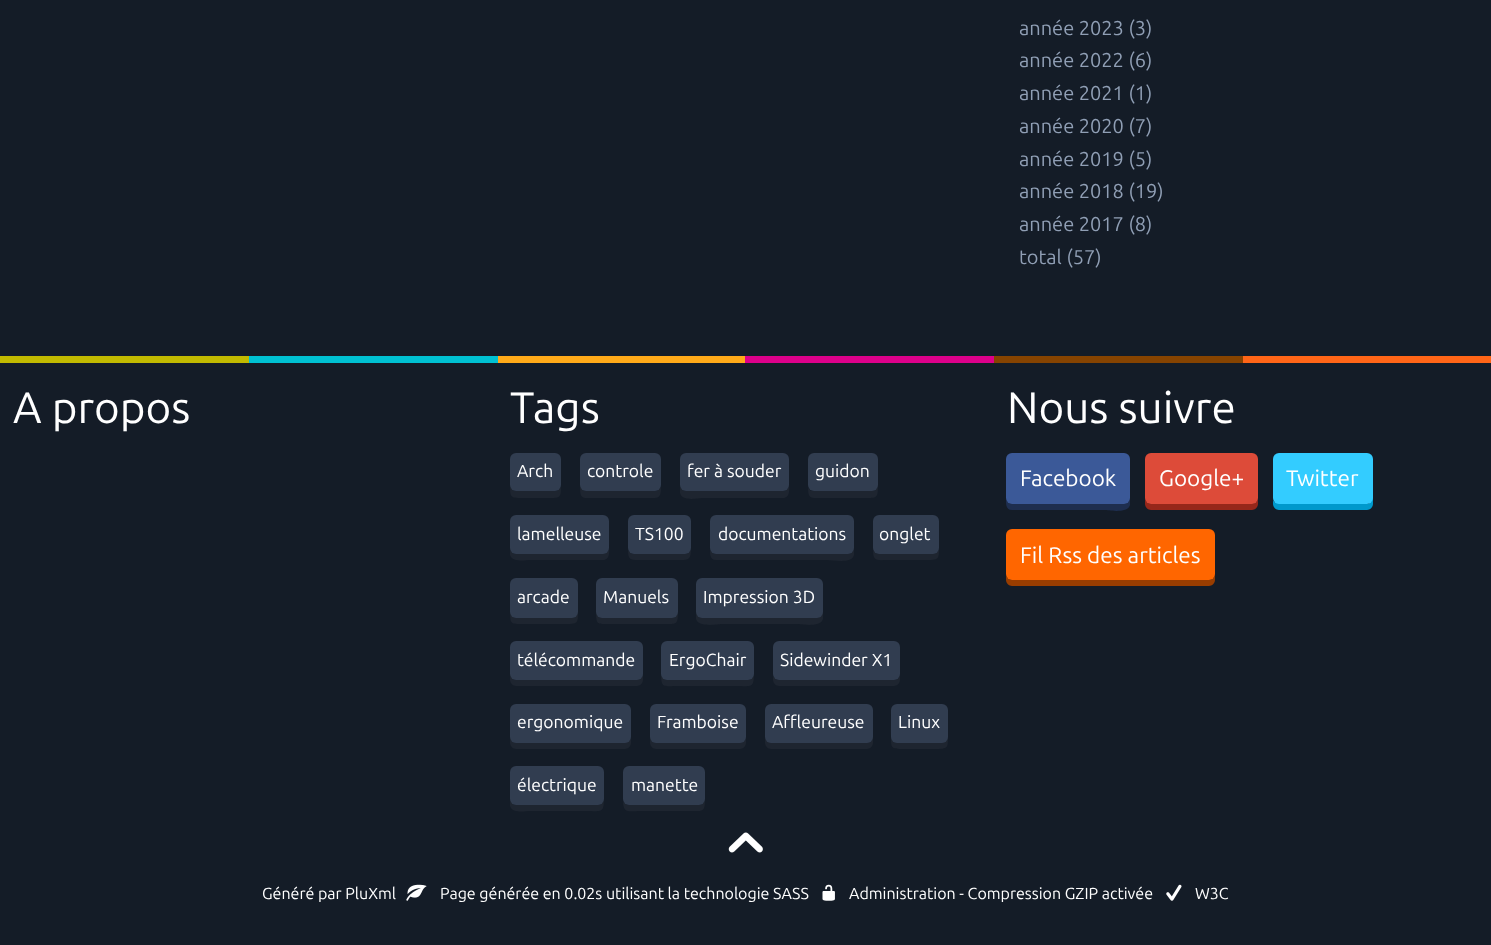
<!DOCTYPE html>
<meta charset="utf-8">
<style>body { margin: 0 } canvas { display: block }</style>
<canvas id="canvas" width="1491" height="945"></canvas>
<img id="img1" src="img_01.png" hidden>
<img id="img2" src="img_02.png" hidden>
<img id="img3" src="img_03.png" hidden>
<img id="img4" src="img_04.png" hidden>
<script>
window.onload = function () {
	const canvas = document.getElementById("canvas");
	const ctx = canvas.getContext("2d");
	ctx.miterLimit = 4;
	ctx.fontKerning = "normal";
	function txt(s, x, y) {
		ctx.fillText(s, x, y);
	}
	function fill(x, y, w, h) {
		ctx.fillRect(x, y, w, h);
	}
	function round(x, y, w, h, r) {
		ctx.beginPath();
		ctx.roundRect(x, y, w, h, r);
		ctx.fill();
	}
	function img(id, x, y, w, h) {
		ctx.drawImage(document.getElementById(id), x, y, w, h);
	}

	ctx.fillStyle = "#141C27";
	fill(0, 0, 1491, 945);
	ctx.fillStyle = "#C2BA00";
	fill(0, 356, 249, 7);
	ctx.fillStyle = "#00C1D2";
	fill(249, 356, 249, 7);
	ctx.fillStyle = "#FFAA19";
	fill(498, 356, 247, 7);
	ctx.fillStyle = "#DD008A";
	fill(745, 356, 249, 7);
	ctx.fillStyle = "#864300";
	fill(994, 356, 249, 7);
	ctx.fillStyle = "#FF6517";
	fill(1243, 356, 248, 7);
	ctx.fillStyle = "#1E2530";
	ctx.beginPath();
	ctx.moveTo(510, 485);
	ctx.bezierCurveTo(510, 497, 510, 498, 522, 498);
	ctx.lineTo(548, 498);
	ctx.bezierCurveTo(560, 498, 561, 498, 561, 487);
	ctx.bezierCurveTo(560, 489, 558, 491, 555, 491);
	ctx.lineTo(516, 491);
	ctx.bezierCurveTo(513, 491, 510, 488, 510, 485);
	ctx.closePath();
	ctx.fill();
	ctx.fillStyle = "#313D50";
	round(510, 453, 51, 38, 6);
	ctx.fillStyle = "#1E2530";
	ctx.beginPath();
	ctx.moveTo(580, 485);
	ctx.bezierCurveTo(580, 500, 581, 498, 598, 498);
	ctx.lineTo(644, 498);
	ctx.bezierCurveTo(658, 498, 661, 500, 661, 487);
	ctx.bezierCurveTo(660, 489, 658, 491, 655, 491);
	ctx.lineTo(586, 491);
	ctx.bezierCurveTo(583, 491, 580, 488, 580, 485);
	ctx.closePath();
	ctx.fill();
	ctx.fillStyle = "#313D50";
	round(580, 453, 81, 38, 6);
	ctx.fillStyle = "#1E2530";
	ctx.beginPath();
	ctx.moveTo(680, 485);
	ctx.lineTo(680, 493);
	ctx.bezierCurveTo(682, 502, 699, 498, 702, 498);
	ctx.lineTo(783, 498);
	ctx.bezierCurveTo(791, 498, 789, 488, 789, 483);
	ctx.lineTo(789, 463);
	ctx.lineTo(789, 485);
	ctx.bezierCurveTo(789, 488, 786, 491, 782, 491);
	ctx.lineTo(686, 491);
	ctx.bezierCurveTo(683, 491, 680, 488, 680, 485);
	ctx.closePath();
	ctx.fill();
	ctx.fillStyle = "#313D50";
	round(680, 453, 109, 38, 6);
	ctx.fillStyle = "#1E2530";
	ctx.beginPath();
	ctx.moveTo(808, 487);
	ctx.bezierCurveTo(808, 500, 811, 498, 824, 498);
	ctx.lineTo(862, 498);
	ctx.bezierCurveTo(878, 498, 878, 499, 878, 483);
	ctx.lineTo(878, 463);
	ctx.lineTo(878, 485);
	ctx.bezierCurveTo(878, 488, 875, 491, 871, 491);
	ctx.lineTo(814, 491);
	ctx.bezierCurveTo(811, 491, 809, 490, 808, 487);
	ctx.closePath();
	ctx.fill();
	ctx.fillStyle = "#313D50";
	round(808, 453, 70, 38, 6);
	ctx.fillStyle = "#1E2530";
	ctx.beginPath();
	ctx.moveTo(510, 548);
	ctx.lineTo(510, 555);
	ctx.bezierCurveTo(512, 563, 527, 560, 530, 560);
	ctx.lineTo(603, 560);
	ctx.bezierCurveTo(611, 560, 609, 550, 609, 545);
	ctx.lineTo(609, 525);
	ctx.lineTo(609, 548);
	ctx.bezierCurveTo(609, 551, 606, 554, 602, 554);
	ctx.lineTo(516, 554);
	ctx.bezierCurveTo(513, 554, 510, 551, 510, 548);
	ctx.closePath();
	ctx.fill();
	ctx.fillStyle = "#313D50";
	round(510, 515, 99, 39, 6);
	ctx.fillStyle = "#1E2530";
	ctx.beginPath();
	ctx.moveTo(628, 550);
	ctx.bezierCurveTo(628, 561, 631, 560, 642, 560);
	ctx.lineTo(676, 560);
	ctx.bezierCurveTo(688, 560, 691, 561, 691, 549);
	ctx.bezierCurveTo(690, 552, 688, 554, 685, 554);
	ctx.lineTo(634, 554);
	ctx.bezierCurveTo(631, 554, 629, 552, 628, 550);
	ctx.closePath();
	ctx.fill();
	ctx.fillStyle = "#313D50";
	round(628, 515, 63, 39, 6);
	ctx.fillStyle = "#1E2530";
	ctx.beginPath();
	ctx.moveTo(710, 548);
	ctx.bezierCurveTo(710, 552, 709, 560, 716, 560);
	ctx.lineTo(826, 560);
	ctx.bezierCurveTo(835, 560, 852, 564, 854, 555);
	ctx.lineTo(854, 525);
	ctx.lineTo(854, 548);
	ctx.bezierCurveTo(854, 551, 851, 554, 848, 554);
	ctx.lineTo(716, 554);
	ctx.bezierCurveTo(713, 554, 710, 551, 710, 548);
	ctx.closePath();
	ctx.fill();
	ctx.fillStyle = "#313D50";
	round(710, 515, 144, 39, 6);
	ctx.fillStyle = "#1E2530";
	ctx.beginPath();
	ctx.moveTo(873, 550);
	ctx.bezierCurveTo(873, 562, 877, 560, 888, 560);
	ctx.lineTo(924, 560);
	ctx.bezierCurveTo(940, 560, 939, 560, 939, 545);
	ctx.lineTo(939, 525);
	ctx.lineTo(939, 548);
	ctx.bezierCurveTo(939, 551, 936, 554, 932, 554);
	ctx.lineTo(879, 554);
	ctx.bezierCurveTo(876, 554, 874, 552, 873, 550);
	ctx.closePath();
	ctx.fill();
	ctx.fillStyle = "#313D50";
	round(873, 515, 66, 39, 6);
	ctx.fillStyle = "#1E2530";
	ctx.beginPath();
	ctx.moveTo(510, 611);
	ctx.bezierCurveTo(510, 625, 511, 624, 525, 624);
	ctx.lineTo(563, 624);
	ctx.bezierCurveTo(579, 624, 578, 624, 578, 609);
	ctx.lineTo(578, 588);
	ctx.lineTo(578, 611);
	ctx.bezierCurveTo(578, 615, 575, 618, 571, 618);
	ctx.lineTo(516, 618);
	ctx.bezierCurveTo(513, 618, 510, 615, 510, 611);
	ctx.closePath();
	ctx.fill();
	ctx.fillStyle = "#313D50";
	round(510, 578, 68, 40, 6);
	ctx.fillStyle = "#1E2530";
	ctx.beginPath();
	ctx.moveTo(596, 588);
	ctx.lineTo(596, 609);
	ctx.bezierCurveTo(596, 626, 596, 624, 614, 624);
	ctx.lineTo(660, 624);
	ctx.bezierCurveTo(678, 624, 678, 626, 678, 609);
	ctx.lineTo(678, 588);
	ctx.lineTo(678, 611);
	ctx.bezierCurveTo(678, 615, 675, 618, 671, 618);
	ctx.lineTo(602, 618);
	ctx.bezierCurveTo(599, 618, 596, 615, 596, 611);
	ctx.closePath();
	ctx.fill();
	ctx.fillStyle = "#313D50";
	round(596, 578, 82, 40, 6);
	ctx.fillStyle = "#1E2530";
	ctx.beginPath();
	ctx.moveTo(696, 588);
	ctx.lineTo(696, 619);
	ctx.bezierCurveTo(698, 628, 720, 624, 721, 624);
	ctx.lineTo(798, 624);
	ctx.bezierCurveTo(799, 624, 821, 628, 823, 619);
	ctx.lineTo(823, 595);
	ctx.lineTo(822, 588);
	ctx.lineTo(822, 611);
	ctx.bezierCurveTo(822, 615, 820, 618, 816, 618);
	ctx.lineTo(702, 618);
	ctx.bezierCurveTo(699, 618, 696, 615, 696, 611);
	ctx.closePath();
	ctx.fill();
	ctx.fillStyle = "#313D50";
	round(696, 578, 127, 40, 6);
	ctx.fillStyle = "#1E2530";
	ctx.beginPath();
	ctx.moveTo(510, 674);
	ctx.lineTo(510, 680);
	ctx.bezierCurveTo(510, 683, 513, 686, 516, 686);
	ctx.lineTo(637, 686);
	ctx.bezierCurveTo(640, 686, 643, 683, 643, 680);
	ctx.lineTo(643, 654);
	ctx.lineTo(642, 652);
	ctx.lineTo(642, 674);
	ctx.bezierCurveTo(642, 677, 640, 680, 636, 680);
	ctx.lineTo(516, 680);
	ctx.bezierCurveTo(513, 680, 510, 677, 510, 674);
	ctx.closePath();
	ctx.fill();
	ctx.fillStyle = "#313D50";
	round(510, 641, 133, 39, 6);
	ctx.fillStyle = "#1E2530";
	ctx.beginPath();
	ctx.moveTo(661, 652);
	ctx.lineTo(661, 671);
	ctx.bezierCurveTo(661, 689, 662, 686, 680, 686);
	ctx.lineTo(734, 686);
	ctx.bezierCurveTo(753, 686, 754, 689, 754, 671);
	ctx.lineTo(754, 652);
	ctx.lineTo(754, 674);
	ctx.bezierCurveTo(754, 677, 751, 680, 748, 680);
	ctx.lineTo(668, 680);
	ctx.bezierCurveTo(664, 680, 661, 677, 661, 674);
	ctx.closePath();
	ctx.fill();
	ctx.fillStyle = "#313D50";
	round(661, 641, 93, 39, 6);
	ctx.fillStyle = "#1E2530";
	ctx.beginPath();
	ctx.moveTo(773, 676);
	ctx.lineTo(773, 680);
	ctx.bezierCurveTo(773, 683, 776, 686, 779, 686);
	ctx.lineTo(894, 686);
	ctx.bezierCurveTo(897, 686, 900, 683, 900, 680);
	ctx.lineTo(900, 674);
	ctx.bezierCurveTo(900, 677, 897, 680, 894, 680);
	ctx.lineTo(779, 680);
	ctx.bezierCurveTo(776, 680, 774, 678, 773, 676);
	ctx.closePath();
	ctx.fill();
	ctx.fillStyle = "#313D50";
	round(773, 641, 127, 39, 6);
	ctx.fillStyle = "#1E2530";
	ctx.beginPath();
	ctx.moveTo(510, 736);
	ctx.lineTo(510, 743);
	ctx.bezierCurveTo(510, 746, 513, 749, 516, 749);
	ctx.lineTo(625, 749);
	ctx.bezierCurveTo(628, 749, 631, 746, 631, 743);
	ctx.lineTo(631, 738);
	ctx.bezierCurveTo(630, 741, 628, 742, 625, 742);
	ctx.lineTo(516, 742);
	ctx.bezierCurveTo(513, 742, 510, 740, 510, 736);
	ctx.closePath();
	ctx.fill();
	ctx.fillStyle = "#313D50";
	round(510, 704, 121, 39, 6);
	ctx.fillStyle = "#1E2530";
	ctx.beginPath();
	ctx.moveTo(650, 736);
	ctx.lineTo(650, 743);
	ctx.bezierCurveTo(650, 746, 653, 749, 656, 749);
	ctx.lineTo(740, 749);
	ctx.bezierCurveTo(743, 749, 746, 746, 746, 743);
	ctx.lineTo(746, 738);
	ctx.bezierCurveTo(745, 741, 743, 742, 740, 742);
	ctx.lineTo(656, 742);
	ctx.bezierCurveTo(653, 742, 650, 740, 650, 736);
	ctx.closePath();
	ctx.fill();
	ctx.fillStyle = "#313D50";
	round(650, 704, 96, 39, 6);
	ctx.fillStyle = "#1E2530";
	ctx.beginPath();
	ctx.moveTo(765, 736);
	ctx.lineTo(765, 743);
	ctx.bezierCurveTo(765, 746, 768, 749, 771, 749);
	ctx.lineTo(867, 749);
	ctx.bezierCurveTo(870, 749, 873, 746, 873, 743);
	ctx.lineTo(873, 716);
	ctx.lineTo(872, 714);
	ctx.lineTo(872, 736);
	ctx.bezierCurveTo(872, 740, 870, 742, 866, 742);
	ctx.lineTo(771, 742);
	ctx.bezierCurveTo(768, 742, 765, 740, 765, 736);
	ctx.closePath();
	ctx.fill();
	ctx.fillStyle = "#313D50";
	round(765, 704, 108, 39, 6);
	ctx.fillStyle = "#1E2530";
	ctx.beginPath();
	ctx.moveTo(891, 714);
	ctx.lineTo(891, 734);
	ctx.bezierCurveTo(891, 748, 890, 749, 904, 749);
	ctx.lineTo(934, 749);
	ctx.bezierCurveTo(949, 749, 948, 748, 948, 734);
	ctx.lineTo(948, 714);
	ctx.lineTo(948, 732);
	ctx.bezierCurveTo(948, 743, 944, 742, 934, 742);
	ctx.lineTo(919, 742);
	ctx.bezierCurveTo(886, 742, 891, 746, 891, 714);
	ctx.closePath();
	ctx.fill();
	ctx.fillStyle = "#313D50";
	round(891, 704, 57, 39, 6);
	ctx.fillStyle = "#1E2530";
	ctx.beginPath();
	ctx.moveTo(510, 799);
	ctx.lineTo(510, 806);
	ctx.bezierCurveTo(512, 814, 526, 811, 530, 811);
	ctx.lineTo(584, 811);
	ctx.bezierCurveTo(603, 811, 604, 814, 604, 796);
	ctx.lineTo(604, 777);
	ctx.lineTo(604, 799);
	ctx.bezierCurveTo(604, 802, 601, 805, 598, 805);
	ctx.lineTo(516, 805);
	ctx.bezierCurveTo(513, 805, 510, 802, 510, 799);
	ctx.closePath();
	ctx.fill();
	ctx.fillStyle = "#313D50";
	round(510, 766, 94, 39, 6);
	ctx.fillStyle = "#1E2530";
	ctx.beginPath();
	ctx.moveTo(623, 801);
	ctx.bezierCurveTo(623, 814, 629, 811, 641, 811);
	ctx.lineTo(687, 811);
	ctx.bezierCurveTo(703, 811, 705, 813, 705, 799);
	ctx.bezierCurveTo(705, 802, 702, 805, 699, 805);
	ctx.lineTo(629, 805);
	ctx.bezierCurveTo(626, 805, 624, 803, 623, 801);
	ctx.closePath();
	ctx.fill();
	ctx.fillStyle = "#313D50";
	round(623, 766, 82, 39, 6);
	ctx.fillStyle = "#1E2E4F";
	ctx.beginPath();
	ctx.moveTo(1006, 463);
	ctx.lineTo(1006, 498);
	ctx.bezierCurveTo(1006, 502, 1005, 510, 1012, 510);
	ctx.lineTo(1105, 510);
	ctx.bezierCurveTo(1107, 510, 1128, 514, 1130, 505);
	ctx.lineTo(1130, 498);
	ctx.bezierCurveTo(1130, 501, 1127, 504, 1124, 504);
	ctx.lineTo(1012, 504);
	ctx.bezierCurveTo(1009, 504, 1006, 501, 1006, 498);
	ctx.closePath();
	ctx.fill();
	ctx.fillStyle = "#3B5998";
	round(1006, 453, 124, 51, 6);
	ctx.fillStyle = "#96271A";
	ctx.beginPath();
	ctx.moveTo(1145, 498);
	ctx.lineTo(1145, 504);
	ctx.bezierCurveTo(1145, 507, 1148, 510, 1151, 510);
	ctx.lineTo(1252, 510);
	ctx.bezierCurveTo(1255, 510, 1258, 507, 1258, 504);
	ctx.lineTo(1258, 465);
	ctx.lineTo(1258, 463);
	ctx.lineTo(1258, 498);
	ctx.bezierCurveTo(1258, 501, 1255, 504, 1251, 504);
	ctx.lineTo(1151, 504);
	ctx.bezierCurveTo(1148, 504, 1145, 501, 1145, 498);
	ctx.closePath();
	ctx.fill();
	ctx.fillStyle = "#DD4B39";
	round(1145, 453, 113, 51, 6);
	ctx.fillStyle = "#0099CC";
	ctx.beginPath();
	ctx.moveTo(1273, 500);
	ctx.lineTo(1273, 504);
	ctx.bezierCurveTo(1273, 507, 1276, 510, 1279, 510);
	ctx.lineTo(1367, 510);
	ctx.bezierCurveTo(1370, 510, 1373, 507, 1373, 504);
	ctx.lineTo(1373, 465);
	ctx.lineTo(1372, 463);
	ctx.lineTo(1372, 499);
	ctx.lineTo(1371, 502);
	ctx.lineTo(1368, 504);
	ctx.lineTo(1277, 503);
	ctx.bezierCurveTo(1275, 503, 1274, 502, 1273, 500);
	ctx.closePath();
	ctx.fill();
	ctx.fillStyle = "#33CCFF";
	round(1273, 453, 100, 51, 6);
	ctx.fillStyle = "#993D00";
	ctx.beginPath();
	ctx.moveTo(1006, 539);
	ctx.lineTo(1006, 580);
	ctx.bezierCurveTo(1006, 583, 1009, 586, 1012, 586);
	ctx.lineTo(1209, 586);
	ctx.bezierCurveTo(1212, 586, 1215, 583, 1215, 580);
	ctx.lineTo(1215, 574);
	ctx.bezierCurveTo(1215, 577, 1212, 580, 1209, 580);
	ctx.lineTo(1012, 580);
	ctx.bezierCurveTo(1009, 580, 1006, 577, 1006, 574);
	ctx.closePath();
	ctx.fill();
	ctx.fillStyle = "#FF6600";
	round(1006, 529, 209, 51, 6);
	img("img1", 728, 832, 35, 21);
	img("img2", 406, 884, 21, 17);
	img("img3", 822, 884, 13, 17);
	img("img4", 1166, 884, 16, 17);
	ctx.font = "20px Ubuntu";
	ctx.fillStyle = "#909FB5";
	txt("année 2023 (3)", 1019, 35);
	txt("année 2022 (6)", 1019, 67);
	txt("année 2021 (1)", 1019, 100);
	txt("année 2020 (7)", 1019, 133);
	txt("année 2019 (5)", 1019, 166);
	txt("année 2018 (19)", 1019, 198);
	txt("année 2017 (8)", 1019, 231);
	txt("total (57)", 1019, 264);
	ctx.font = "44px Ubuntu";
	ctx.fillStyle = "#FFFFFF";
	txt("A propos", 13, 423);
	txt("Tags", 510, 423);
	ctx.font = "17.5px Ubuntu";
	txt("Arch", 517, 477);
	txt("controle", 587, 477);
	txt("fer à souder", 687, 477);
	txt("guidon", 815, 477);
	txt("lamelleuse", 517, 540);
	txt("TS100", 635, 540);
	txt("documentations", 718, 540);
	txt("onglet", 879, 540);
	txt("arcade", 517, 603);
	txt("Manuels", 603, 603);
	txt("Impression 3D", 703, 603);
	txt("télécommande", 517, 666);
	txt("ErgoChair", 669, 666);
	txt("Sidewinder X1", 780, 666);
	txt("ergonomique", 517, 728);
	txt("Framboise", 657, 728);
	txt("Affleureuse", 772, 728);
	txt("Linux", 898, 728);
	txt("électrique", 517, 791);
	txt("manette", 631, 791);
	ctx.font = "44px Ubuntu";
	txt("Nous suivre", 1007, 423);
	ctx.font = "22.5px Ubuntu";
	txt("Facebook", 1020, 486);
	txt("Google+", 1159, 486);
	txt("Twitter", 1286, 486);
	txt("Fil Rss des articles", 1020, 563);
	ctx.font = "16px Ubuntu";
	txt("Généré par PluXml", 262, 899);
	txt("Page générée en 0.02s utilisant la technologie SASS", 440, 899);
	txt("Administration - Compression GZIP activée", 849, 899);
	txt("W3C", 1195, 899);
};
</script>
